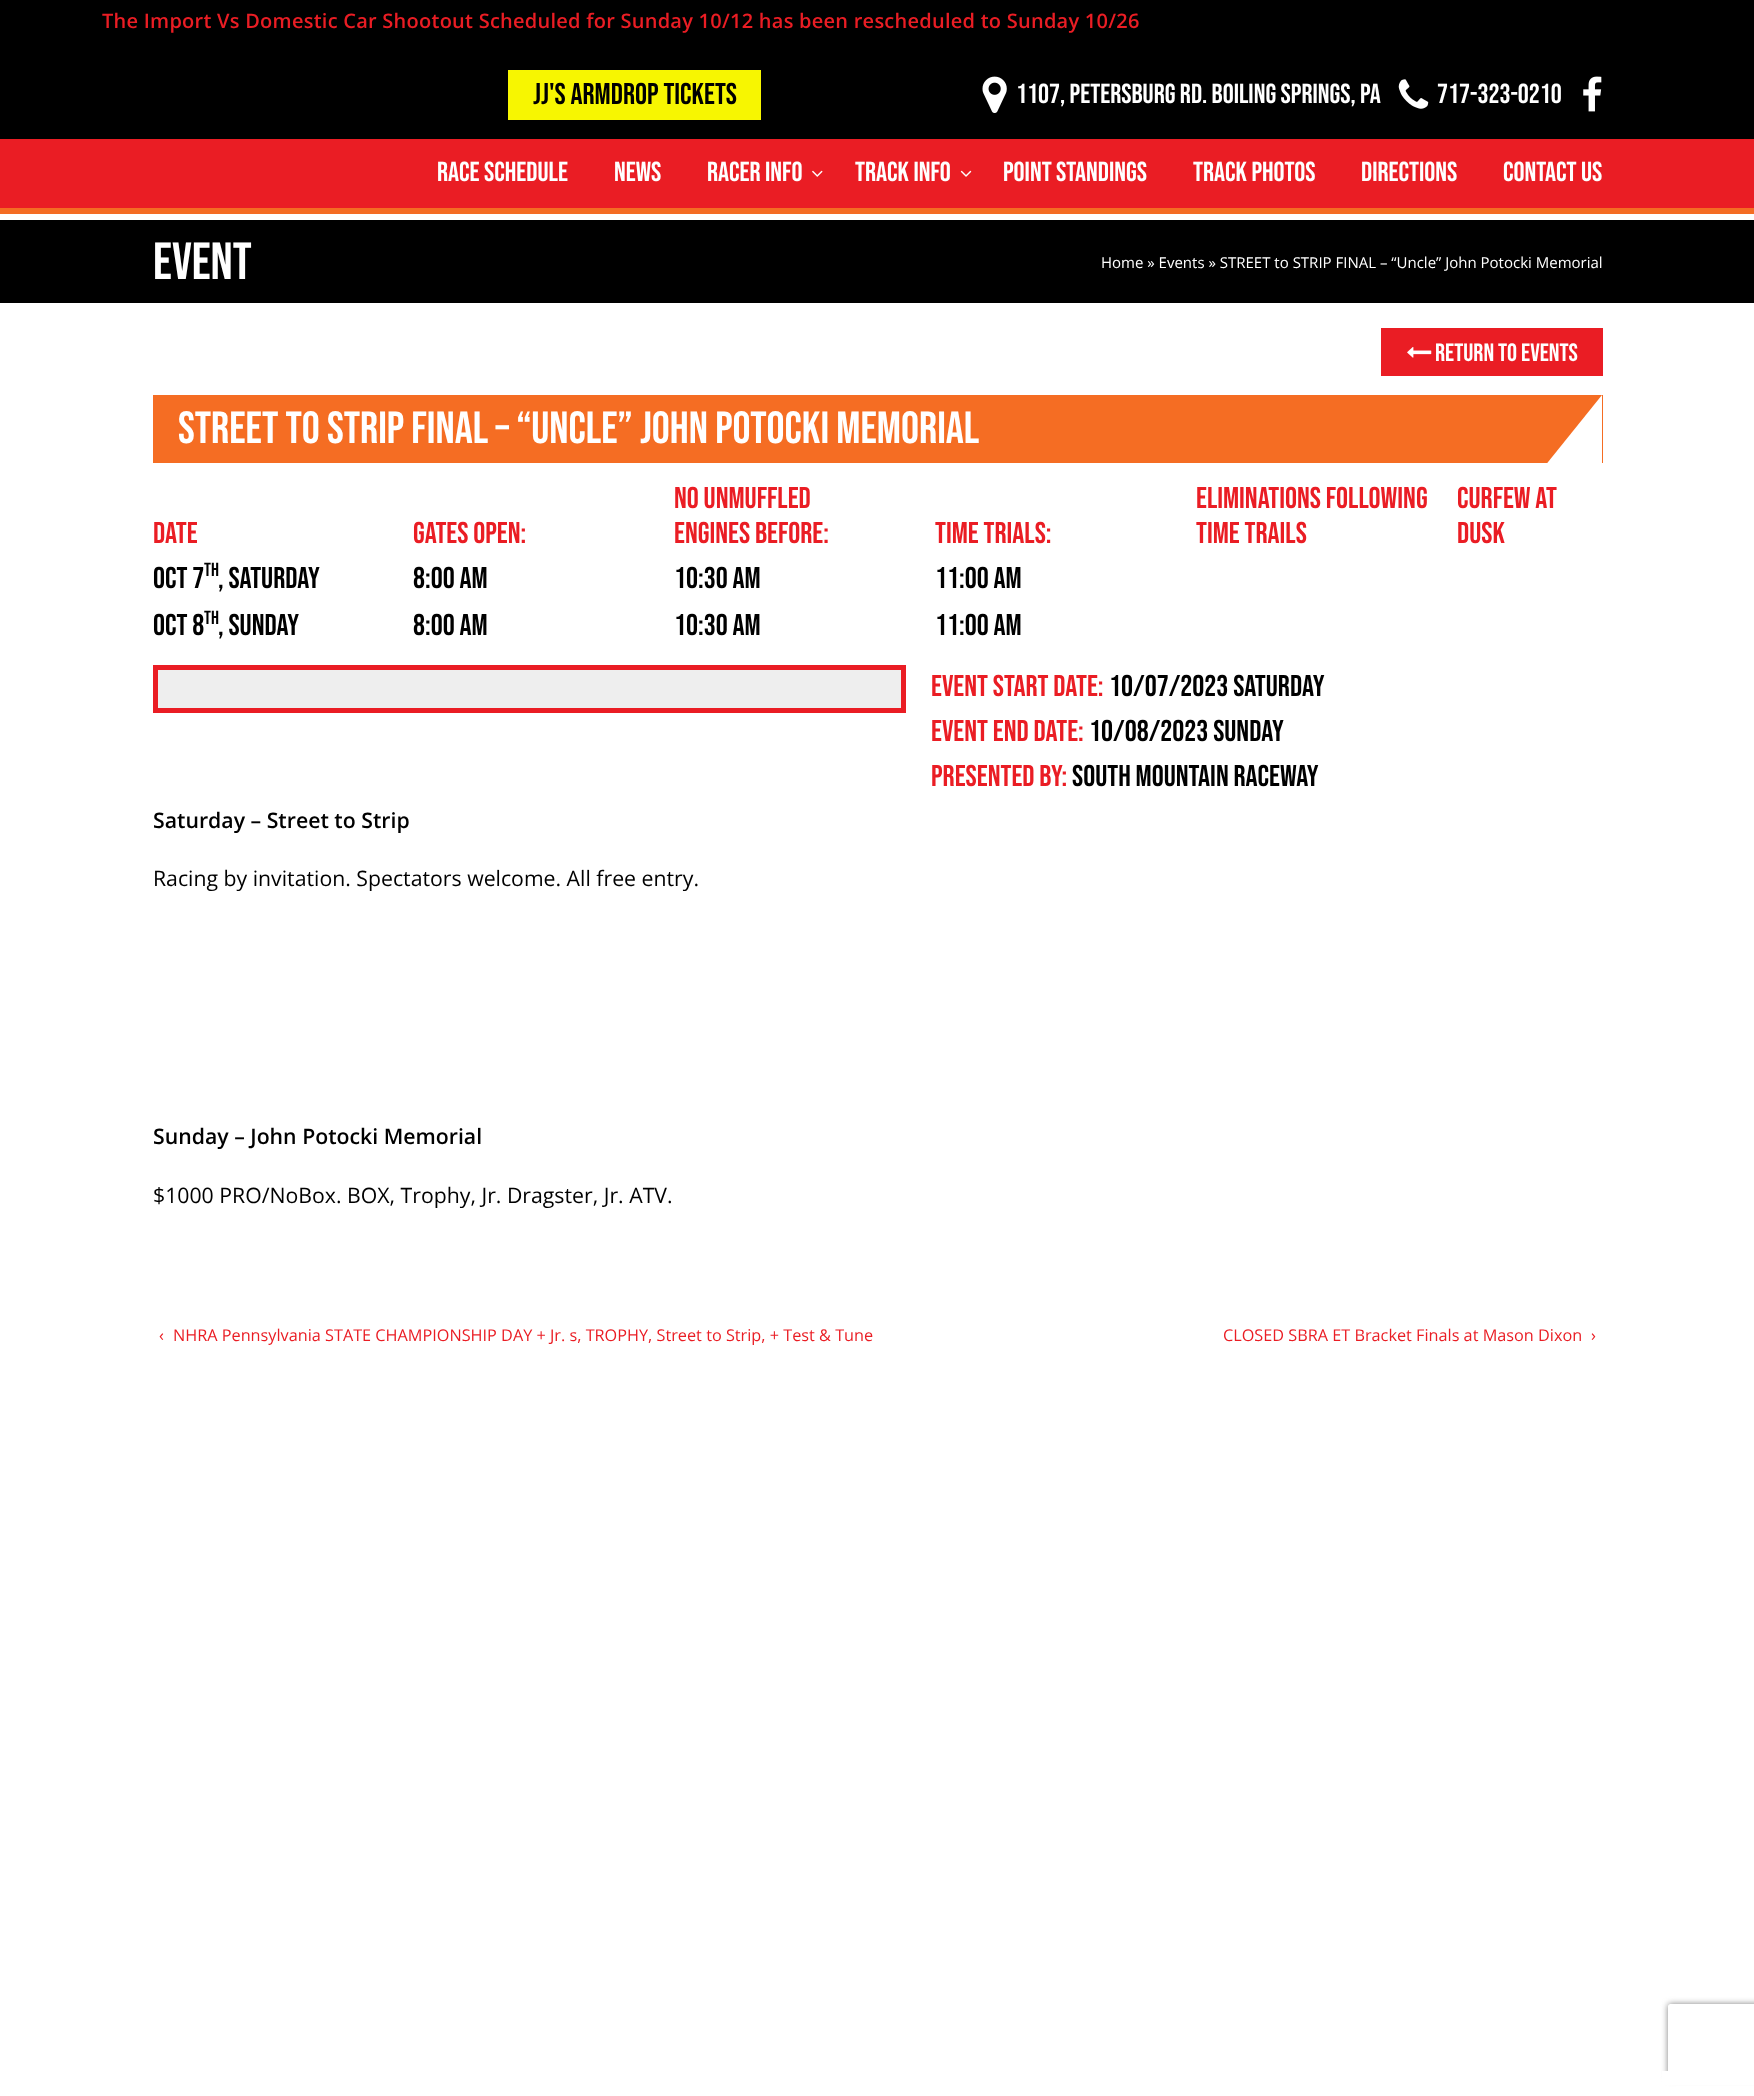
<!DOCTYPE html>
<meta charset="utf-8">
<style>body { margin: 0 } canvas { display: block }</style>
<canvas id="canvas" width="1754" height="2096"></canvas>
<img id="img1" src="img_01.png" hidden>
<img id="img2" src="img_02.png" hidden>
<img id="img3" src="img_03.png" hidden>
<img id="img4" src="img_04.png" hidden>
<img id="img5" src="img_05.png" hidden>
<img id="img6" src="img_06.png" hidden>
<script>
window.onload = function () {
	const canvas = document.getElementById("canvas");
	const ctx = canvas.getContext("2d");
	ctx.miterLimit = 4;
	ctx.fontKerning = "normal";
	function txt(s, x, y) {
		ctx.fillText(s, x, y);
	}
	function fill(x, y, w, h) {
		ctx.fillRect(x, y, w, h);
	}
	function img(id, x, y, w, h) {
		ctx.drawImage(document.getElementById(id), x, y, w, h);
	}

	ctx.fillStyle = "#FFFFFF";
	fill(0, 0, 1754, 2096);
	ctx.fillStyle = "#000000";
	fill(0, 0, 1754, 139);
	ctx.fillStyle = "#F7F601";
	fill(508, 70, 253, 50);
	img("img1", 982, 76, 25, 37);
	img("img2", 1398, 79, 31, 30);
	img("img3", 1583, 76, 19, 36);
	ctx.fillStyle = "#EA1D24";
	fill(0, 139, 1754, 69);
	ctx.fillStyle = "#F46C23";
	fill(0, 208, 1754, 6);
	img("img4", 812, 170, 11, 7);
	img("img5", 960, 170, 12, 7);
	ctx.fillStyle = "#000000";
	fill(0, 220, 1754, 83);
	ctx.fillStyle = "#EA1D24";
	fill(1381, 328, 222, 48);
	img("img6", 1407, 347, 25, 11);
	ctx.fillStyle = "#F56D23";
	fill(153, 395, 1450, 68);
	ctx.fillStyle = "#FFFFFF";
	ctx.beginPath();
	ctx.moveTo(1602, 472);
	ctx.lineTo(1540, 472);
	ctx.lineTo(1602, 395);
	ctx.closePath();
	ctx.fill();
	ctx.fillStyle = "#EEEEEE";
	ctx.beginPath();
	ctx.rect(155.5, 667.5, 748, 43);
	ctx.fill();
	ctx.strokeStyle = "#EA1D24";
	ctx.lineWidth = 5;
	ctx.stroke();
	ctx.save();
	ctx.beginPath();
	ctx.moveTo(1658, 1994);
	ctx.lineTo(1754, 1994);
	ctx.lineTo(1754, 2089);
	ctx.lineTo(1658, 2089);
	ctx.closePath();
	ctx.moveTo(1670.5, 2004);
	ctx.lineTo(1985.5, 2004);
	ctx.bezierCurveTo(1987, 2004, 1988, 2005, 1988, 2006.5);
	ctx.lineTo(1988, 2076.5);
	ctx.bezierCurveTo(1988, 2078, 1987, 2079, 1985.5, 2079);
	ctx.lineTo(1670.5, 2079);
	ctx.bezierCurveTo(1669, 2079, 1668, 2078, 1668, 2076.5);
	ctx.lineTo(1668, 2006.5);
	ctx.bezierCurveTo(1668, 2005, 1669, 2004, 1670.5, 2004);
	ctx.closePath();
	ctx.clip("evenodd");
	ctx.fillStyle = "#808080";
	ctx.filter = "blur(3px)";
	ctx.beginPath();
	ctx.roundRect(1668, 2004, 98, 75, 2.5);
	ctx.fill();
	ctx.filter = "none";
	ctx.restore();
	ctx.fillStyle = "#FFFFFF";
	fill(1662, 2071, 92, 14);
	ctx.letterSpacing = "0.25px";
	ctx.font = "600 20px Open Sans";
	ctx.fillStyle = "#EA1D24";
	txt("The Import Vs Domestic Car Shootout Scheduled for Sunday 10/12 has been rescheduled to Sunday 10/26", 102, 28);
	ctx.letterSpacing = "0px";
	ctx.font = "30px Bebas Neue";
	ctx.fillStyle = "#000000";
	txt("JJ'S ARMDROP TICKETS", 533, 104);
	ctx.font = "27.5px Bebas Neue";
	ctx.fillStyle = "#FFFFFF";
	txt("1107, Petersburg Rd. Boiling Springs, PA", 1016, 103);
	txt("717-323-0210", 1437, 103);
	txt("RACE SCHEDULE", 437, 181);
	txt("NEWS", 614, 181);
	txt("RACER INFO", 707, 181);
	txt("TRACK INFO", 855, 181);
	txt("POINT STANDINGS", 1003, 181);
	txt("TRACK PHOTOS", 1193, 181);
	txt("DIRECTIONS", 1361, 181);
	txt("CONTACT US", 1503, 181);
	ctx.font = "52px Bebas Neue";
	txt("EVENT", 153, 279);
	ctx.font = "15px Open Sans";
	txt("Home » Events » STREET to STRIP FINAL – “Uncle” John Potocki Memorial", 1101, 268);
	ctx.font = "25px Bebas Neue";
	txt("Return to Events", 1435, 361);
	ctx.font = "45px Bebas Neue";
	txt("STREET to STRIP FINAL – “Uncle” John Potocki Memorial", 178, 443);
	ctx.font = "30px Bebas Neue";
	ctx.fillStyle = "#EA1D24";
	txt("DATE", 153, 543);
	txt("GATES OPEN:", 413, 543);
	txt("NO UNMUFFLED", 674, 508);
	txt("ENGINES BEFORE:", 674, 543);
	txt("TIME TRIALS:", 935, 543);
	txt("ELIMINATIONS FOLLOWING", 1196, 508);
	txt("TIME TRAILS", 1196, 543);
	txt("CURFEW AT", 1457, 508);
	txt("DUSK", 1457, 543);
	ctx.fillStyle = "#000000";
	txt("Oct 7", 153, 588);
	ctx.font = "19px Bebas Neue";
	txt("th", 204, 576);
	ctx.font = "30px Bebas Neue";
	txt(", Saturday", 218, 588);
	txt("8:00 am", 413, 588);
	txt("10:30 am", 674, 588);
	txt("11:00 am", 935, 588);
	txt("Oct 8", 153, 635);
	ctx.font = "19px Bebas Neue";
	txt("th", 204, 624);
	ctx.font = "30px Bebas Neue";
	txt(", Sunday", 218, 635);
	txt("8:00 am", 413, 635);
	txt("10:30 am", 674, 635);
	txt("11:00 am", 935, 635);
	ctx.fillStyle = "#EA1D24";
	txt("Event Start Date:", 931, 696);
	ctx.fillStyle = "#000000";
	txt("10/07/2023 Saturday", 1109, 696);
	ctx.fillStyle = "#EA1D24";
	txt("Event End Date:", 931, 741);
	ctx.fillStyle = "#000000";
	txt("10/08/2023 Sunday", 1089, 741);
	ctx.fillStyle = "#EA1D24";
	txt("Presented By:", 931, 786);
	ctx.fillStyle = "#000000";
	txt("South Mountain Raceway", 1072, 786);
	ctx.font = "600 21.25px Open Sans";
	txt("Saturday – Street to Strip", 153, 828);
	ctx.font = "21.25px Open Sans";
	txt("Racing by invitation. Spectators welcome. All free entry.", 153, 886);
	ctx.font = "600 21.25px Open Sans";
	txt("Sunday – John Potocki Memorial", 153, 1144);
	ctx.font = "21.25px Open Sans";
	txt("$1000 PRO/NoBox. BOX, Trophy, Jr. Dragster, Jr. ATV.", 153, 1203);
	ctx.font = "16.25px Open Sans";
	ctx.fillStyle = "#EA1D24";
	txt("‹", 159, 1341);
	txt("NHRA Pennsylvania STATE CHAMPIONSHIP DAY + Jr. s, TROPHY, Street to Strip, + Test & Tune", 173, 1341);
	txt("CLOSED SBRA ET Bracket Finals at Mason Dixon", 1223, 1341);
	txt("›", 1591, 1341);
};
</script>
